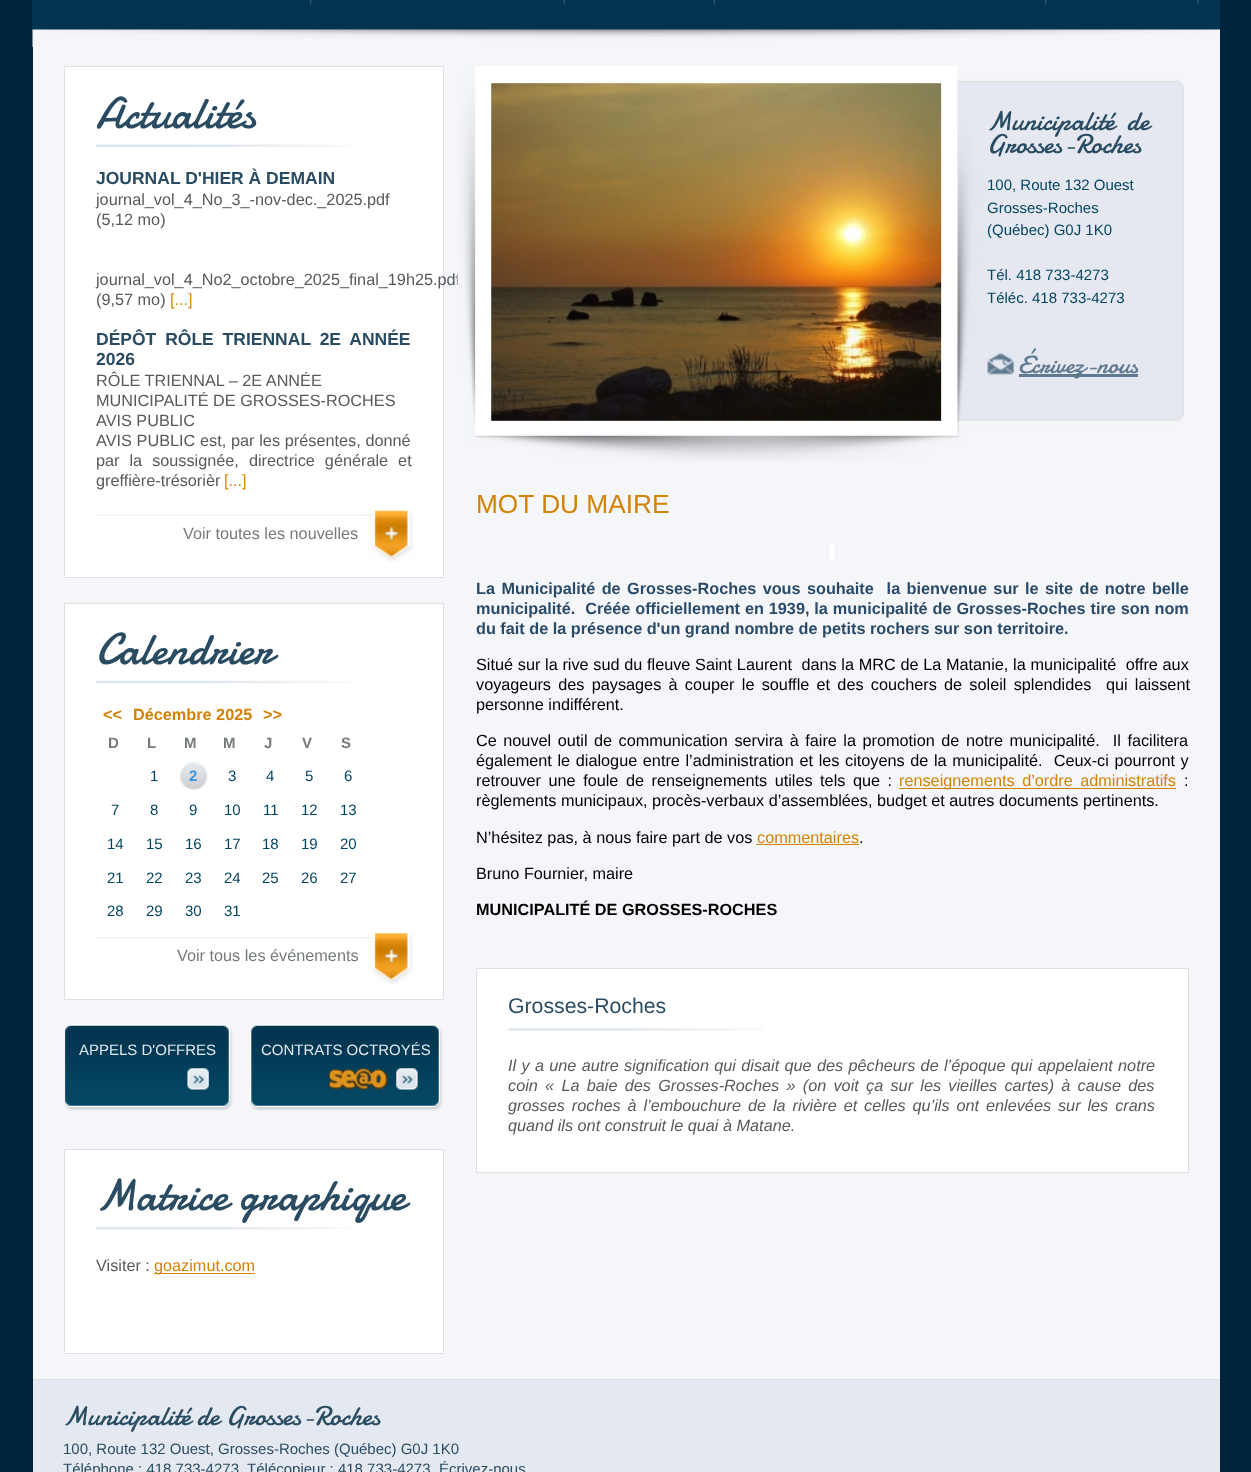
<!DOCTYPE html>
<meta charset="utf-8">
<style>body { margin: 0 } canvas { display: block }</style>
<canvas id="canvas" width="1251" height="1472"></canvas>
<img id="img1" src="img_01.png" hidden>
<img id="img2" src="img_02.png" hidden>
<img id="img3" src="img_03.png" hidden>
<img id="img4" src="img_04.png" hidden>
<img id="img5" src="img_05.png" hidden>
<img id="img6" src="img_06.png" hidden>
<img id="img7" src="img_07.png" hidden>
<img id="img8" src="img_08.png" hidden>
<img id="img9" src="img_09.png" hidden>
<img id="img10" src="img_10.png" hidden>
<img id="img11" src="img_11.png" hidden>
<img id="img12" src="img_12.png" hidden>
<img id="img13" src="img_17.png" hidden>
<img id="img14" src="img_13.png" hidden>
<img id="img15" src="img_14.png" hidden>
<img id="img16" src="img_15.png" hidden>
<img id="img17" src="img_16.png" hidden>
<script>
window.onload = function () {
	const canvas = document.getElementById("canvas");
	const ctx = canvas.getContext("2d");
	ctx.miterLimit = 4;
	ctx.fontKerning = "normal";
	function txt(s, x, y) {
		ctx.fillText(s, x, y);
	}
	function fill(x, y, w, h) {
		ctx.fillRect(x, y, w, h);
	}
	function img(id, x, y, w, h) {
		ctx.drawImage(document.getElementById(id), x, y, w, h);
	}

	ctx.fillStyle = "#00243E";
	fill(0, 0, 1251, 1472);
	ctx.fillStyle = "#02344F";
	fill(32, 0, 1188, 30);
	img("img1", 310, 0, 2, 5);
	img("img2", 563, 0, 2, 5);
	img("img2", 713, 0, 2, 5);
	img("img1", 1045, 0, 2, 5);
	img("img3", 1197, 0, 2, 5);
	ctx.fillStyle = "#F4F6F9";
	fill(33, 47, 1187, 1332);
	img("img4", 32, 29, 1188, 18);
	ctx.fillStyle = "#FFFFFF";
	ctx.beginPath();
	ctx.rect(64.5, 66.5, 379, 511);
	ctx.fill();
	ctx.strokeStyle = "#DFE0E2";
	ctx.stroke();
	img("img5", 96, 144, 255, 3);
	img("img6", 96, 510, 318, 52);
	ctx.beginPath();
	ctx.rect(64.5, 603.5, 379, 396);
	ctx.fill();
	ctx.stroke();
	img("img7", 96, 680, 255, 4);
	img("img8", 180, 762, 28, 28);
	img("img9", 96, 933, 318, 52);
	img("img10", 64, 1024, 169, 87);
	img("img11", 250, 1024, 193, 87);
	ctx.beginPath();
	ctx.rect(64.5, 1149.5, 379, 204);
	ctx.fill();
	ctx.stroke();
	img("img12", 96, 1227, 255, 3);
	ctx.fillStyle = "#D48305";
	fill(154, 1273, 101, 1);
	ctx.fillStyle = "#FFFFFF";
	fill(830, 543, 4, 18);
	ctx.fillStyle = "#D48305";
	fill(899, 788, 277, 1);
	fill(756, 844, 103, 1);
	ctx.fillStyle = "#FFFFFF";
	ctx.beginPath();
	ctx.rect(476.5, 968.5, 712, 204);
	ctx.fill();
	ctx.stroke();
	img("img13", 508, 1028, 256, 3);
	ctx.fillStyle = "#E4E8F1";
	fill(33, 1380, 1187, 92);
	ctx.fillStyle = "#DFE0E2";
	fill(33, 1379, 1187, 1);
	ctx.font = "45px Damion";
	ctx.fillStyle = "#2A4C62";
	txt("Actualités", 96, 128);
	ctx.font = "bold 17.5px Liberation Sans";
	txt("JOURNAL D'HIER À DEMAIN", 96, 184);
	ctx.font = "16.25px Liberation Sans";
	ctx.fillStyle = "#565A5C";
	txt("journal_vol_4_No_3_-nov-dec._2025.pdf", 96, 205);
	txt("(5,12 mo)", 96, 225);
	txt("journal_vol_4_No2_octobre_2025_final_19h25.pdf", 96, 285);
	txt("(9,57 mo)", 96, 305);
	ctx.fillStyle = "#DA890B";
	txt("[...]", 170, 305);
	ctx.wordSpacing = "4px";
	ctx.font = "bold 17.5px Liberation Sans";
	ctx.fillStyle = "#2A4C62";
	txt("DÉPÔT RÔLE TRIENNAL 2E ANNÉE", 96, 345);
	ctx.wordSpacing = "0px";
	txt("2026", 96, 365);
	ctx.font = "16.25px Liberation Sans";
	ctx.fillStyle = "#565A5C";
	txt("RÔLE TRIENNAL – 2E ANNÉE", 96, 386);
	txt("MUNICIPALITÉ DE GROSSES-ROCHES", 96, 406);
	txt("AVIS PUBLIC", 96, 426);
	ctx.wordSpacing = "0.25px";
	txt("AVIS PUBLIC est, par les présentes, donné", 96, 446);
	ctx.wordSpacing = "5.5px";
	txt("par la soussignée, directrice générale et", 96, 466);
	ctx.wordSpacing = "0px";
	txt("greffière-trésorièr", 96, 486);
	ctx.fillStyle = "#DA890B";
	txt("[...]", 224, 486);
	ctx.fillStyle = "#757A7D";
	txt("Voir toutes les nouvelles", 183, 539);
	ctx.font = "45px Damion";
	ctx.fillStyle = "#2A4C62";
	txt("Calendrier", 96, 664);
	ctx.font = "bold 16.25px Liberation Sans";
	ctx.fillStyle = "#D38204";
	txt("<<", 103, 720);
	txt("Décembre 2025", 133, 720);
	txt(">>", 263, 720);
	ctx.font = "bold 15px Liberation Sans";
	ctx.fillStyle = "#757A7D";
	txt("D", 108, 748);
	txt("L", 147, 748);
	txt("M", 184, 748);
	txt("M", 223, 748);
	txt("J", 264, 748);
	txt("V", 302, 748);
	txt("S", 341, 748);
	ctx.font = "15px Liberation Sans";
	ctx.fillStyle = "#044561";
	txt("1", 150, 781);
	ctx.font = "bold 15px Liberation Sans";
	ctx.fillStyle = "#3696E0";
	txt("2", 189, 781);
	ctx.font = "15px Liberation Sans";
	ctx.fillStyle = "#044561";
	txt("3", 228, 781);
	txt("4", 266, 781);
	txt("5", 305, 781);
	txt("6", 344, 781);
	txt("7", 111, 815);
	txt("8", 150, 815);
	txt("9", 189, 815);
	txt("10", 224, 815);
	txt("11", 263, 815);
	txt("12", 301, 815);
	txt("13", 340, 815);
	txt("14", 107, 849);
	txt("15", 146, 849);
	txt("16", 185, 849);
	txt("17", 224, 849);
	txt("18", 262, 849);
	txt("19", 301, 849);
	txt("20", 340, 849);
	txt("21", 107, 883);
	txt("22", 146, 883);
	txt("23", 185, 883);
	txt("24", 224, 883);
	txt("25", 262, 883);
	txt("26", 301, 883);
	txt("27", 340, 883);
	txt("28", 107, 916);
	txt("29", 146, 916);
	txt("30", 185, 916);
	txt("31", 224, 916);
	ctx.font = "16.25px Liberation Sans";
	ctx.fillStyle = "#757A7D";
	txt("Voir tous les événements", 177, 961);
	ctx.font = "15px Liberation Sans";
	ctx.fillStyle = "#E0E8ED";
	txt("APPELS D'OFFRES", 79, 1055);
	txt("CONTRATS OCTROYÉS", 261, 1055);
	ctx.font = "45px Damion";
	ctx.fillStyle = "#2A4C62";
	txt("Matrice graphique", 96, 1210);
	ctx.font = "16.25px Liberation Sans";
	ctx.fillStyle = "#565A5C";
	txt("Visiter :", 96, 1271);
	ctx.fillStyle = "#D38204";
	txt("goazimut.com", 154, 1271);
	img("img14", 457, 66, 727, 395);
	img("img15", 491, 83, 451, 338);
	img("img16", 491, 83, 451, 338);
	ctx.wordSpacing = "6px";
	ctx.font = "27.5px Damion";
	ctx.fillStyle = "#2A4C62";
	txt("Municipalité de", 987, 130);
	ctx.wordSpacing = "0px";
	txt("Grosses-Roches", 987, 153);
	ctx.font = "15px Liberation Sans";
	ctx.fillStyle = "#044561";
	txt("100, Route 132 Ouest", 987, 190);
	txt("Grosses-Roches", 987, 213);
	txt("(Québec) G0J 1K0", 987, 235);
	txt("Tél. 418 733-4273", 987, 280);
	txt("Téléc. 418 733-4273", 987, 303);
	img("img17", 987, 353, 27, 22);
	ctx.fillStyle = "#5F798E";
	fill(1019, 374, 119, 3);
	ctx.font = "25px Damion";
	txt("Écrivez-nous", 1018, 373);
	ctx.font = "26.25px Liberation Sans";
	ctx.fillStyle = "#D38204";
	txt("MOT DU MAIRE", 476, 513);
	ctx.wordSpacing = "1.9px";
	ctx.font = "bold 16.25px Liberation Sans";
	ctx.fillStyle = "#2B4A68";
	txt("La Municipalité de Grosses-Roches vous souhaite  la bienvenue sur le site de notre belle", 476, 594);
	ctx.wordSpacing = "0.4px";
	txt("municipalité.  Créée officiellement en 1939, la municipalité de Grosses-Roches tire son nom", 476, 614);
	ctx.wordSpacing = "0px";
	txt("du fait de la présence d'un grand nombre de petits rochers sur son territoire.", 476, 634);
	ctx.wordSpacing = "0.2px";
	ctx.font = "16.25px Liberation Sans";
	ctx.fillStyle = "#000000";
	txt("Situé sur la rive sud du fleuve Saint Laurent  dans la MRC de La Matanie, la municipalité  offre aux", 476, 670);
	ctx.wordSpacing = "2.75px";
	txt("voyageurs des paysages à couper le souffle et des couchers de soleil splendides  qui laissent", 476, 690);
	ctx.wordSpacing = "0px";
	txt("personne indifférent.", 476, 710);
	ctx.wordSpacing = "2px";
	txt("Ce nouvel outil de communication servira à faire la promotion de notre municipalité.  Il facilitera", 476, 746);
	ctx.wordSpacing = "1.1px";
	txt("également le dialogue entre l’administration et les citoyens de la municipalité.  Ceux-ci pourront y", 476, 766);
	ctx.wordSpacing = "3px";
	txt("retrouver une foule de renseignements utiles tels que :", 476, 786);
	ctx.fillStyle = "#D38204";
	txt("renseignements d’ordre administratifs", 899, 786);
	ctx.wordSpacing = "0px";
	ctx.fillStyle = "#000000";
	txt(":", 1184, 786);
	txt("règlements municipaux, procès-verbaux d’assemblées, budget et autres documents pertinents.", 476, 806);
	txt("N’hésitez pas, à nous faire part de vos", 476, 843);
	ctx.fillStyle = "#D38204";
	txt("commentaires", 757, 843);
	ctx.fillStyle = "#000000";
	txt(".", 859, 843);
	txt("Bruno Fournier, maire", 476, 879);
	ctx.font = "bold 16.25px Liberation Sans";
	txt("MUNICIPALITÉ DE GROSSES-ROCHES", 476, 915);
	ctx.font = "21.25px Liberation Sans";
	ctx.fillStyle = "#2A4C62";
	txt("Grosses-Roches", 508, 1013);
	ctx.wordSpacing = "0.8px";
	ctx.font = "italic 16.25px Liberation Sans";
	ctx.fillStyle = "#565A5C";
	txt("Il y a une autre signification qui disait que des pêcheurs de l’époque qui appelaient notre", 508, 1071);
	ctx.wordSpacing = "2.75px";
	txt("coin « La baie des Grosses-Roches » (on voit ça sur les vieilles cartes) à cause des", 508, 1091);
	ctx.wordSpacing = "2.4px";
	txt("grosses roches à l’embouchure de la rivière et celles qu’ils ont enlevées sur les crans", 508, 1111);
	ctx.wordSpacing = "0px";
	txt("quand ils ont construit le quai à Matane.", 508, 1131);
	ctx.font = "27.5px Damion";
	ctx.fillStyle = "#2A4C62";
	txt("Municipalité de Grosses-Roches", 63, 1425);
	ctx.font = "15px Liberation Sans";
	txt("100, Route 132 Ouest, Grosses-Roches (Québec) G0J 1K0", 63, 1454);
	txt("Téléphone : 418 733-4273, Télécopieur : 418 733-4273", 63, 1474);
	txt("Écrivez-nous", 439, 1474);
};
</script>
